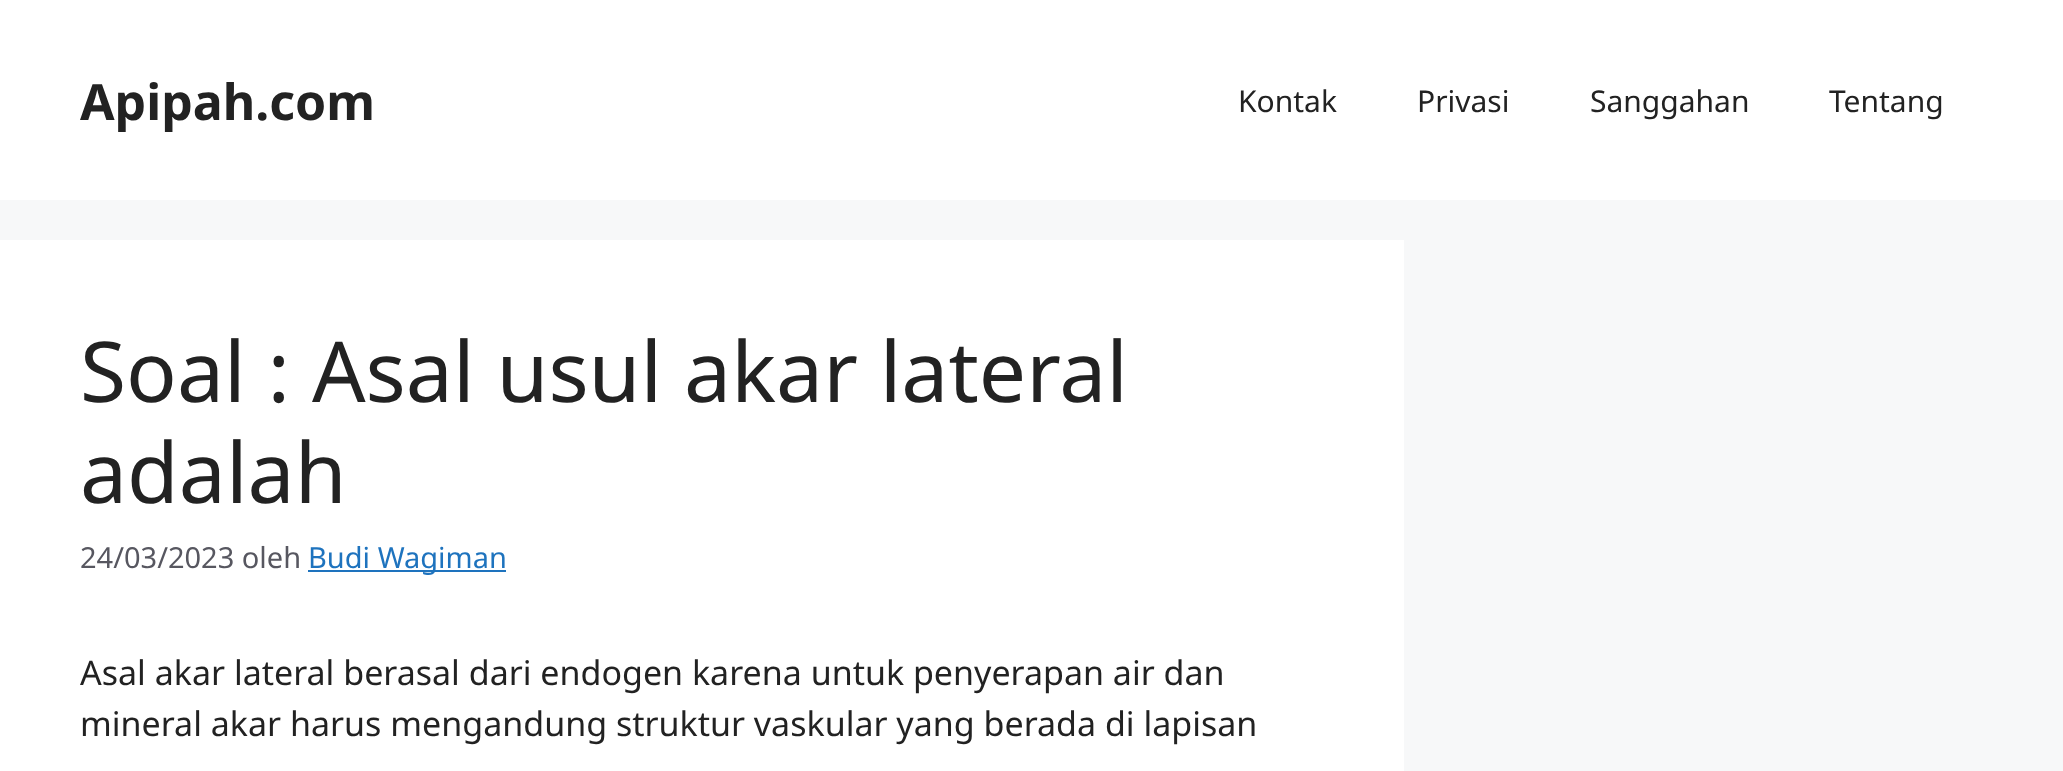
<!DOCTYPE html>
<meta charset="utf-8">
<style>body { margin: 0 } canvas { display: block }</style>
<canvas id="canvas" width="2063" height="771"></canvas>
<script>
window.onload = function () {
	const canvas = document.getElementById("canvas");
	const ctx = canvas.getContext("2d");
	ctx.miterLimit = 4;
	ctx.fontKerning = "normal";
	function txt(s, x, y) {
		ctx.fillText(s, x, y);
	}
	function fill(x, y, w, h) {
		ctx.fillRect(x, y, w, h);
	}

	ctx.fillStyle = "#F7F8F9";
	fill(0, 0, 2063, 771);
	ctx.fillStyle = "#FFFFFF";
	fill(0, 0, 2063, 200);
	fill(0, 240, 1404, 531);
	ctx.fillStyle = "#1E73BE";
	fill(308, 570, 198, 2);
	ctx.font = "bold 50px Noto Sans";
	ctx.fillStyle = "#222222";
	txt("Apipah.com", 80, 120);
	ctx.font = "30px Noto Sans";
	txt("Kontak", 1238, 112);
	txt("Privasi", 1417, 112);
	txt("Sanggahan", 1590, 112);
	txt("Tentang", 1829, 112);
	ctx.font = "84px Noto Sans";
	txt("Soal : Asal usul akar lateral", 80, 402);
	txt("adalah", 80, 503);
	ctx.font = "29px Noto Sans";
	ctx.fillStyle = "#575760";
	txt("24/03/2023 oleh", 80, 568);
	ctx.fillStyle = "#1E73BE";
	txt("Budi Wagiman", 308, 568);
	ctx.font = "34px Noto Sans";
	ctx.fillStyle = "#222222";
	txt("Asal akar lateral berasal dari endogen karena untuk penyerapan air dan", 80, 685);
	txt("mineral akar harus mengandung struktur vaskular yang berada di lapisan", 80, 736);
};
</script>
